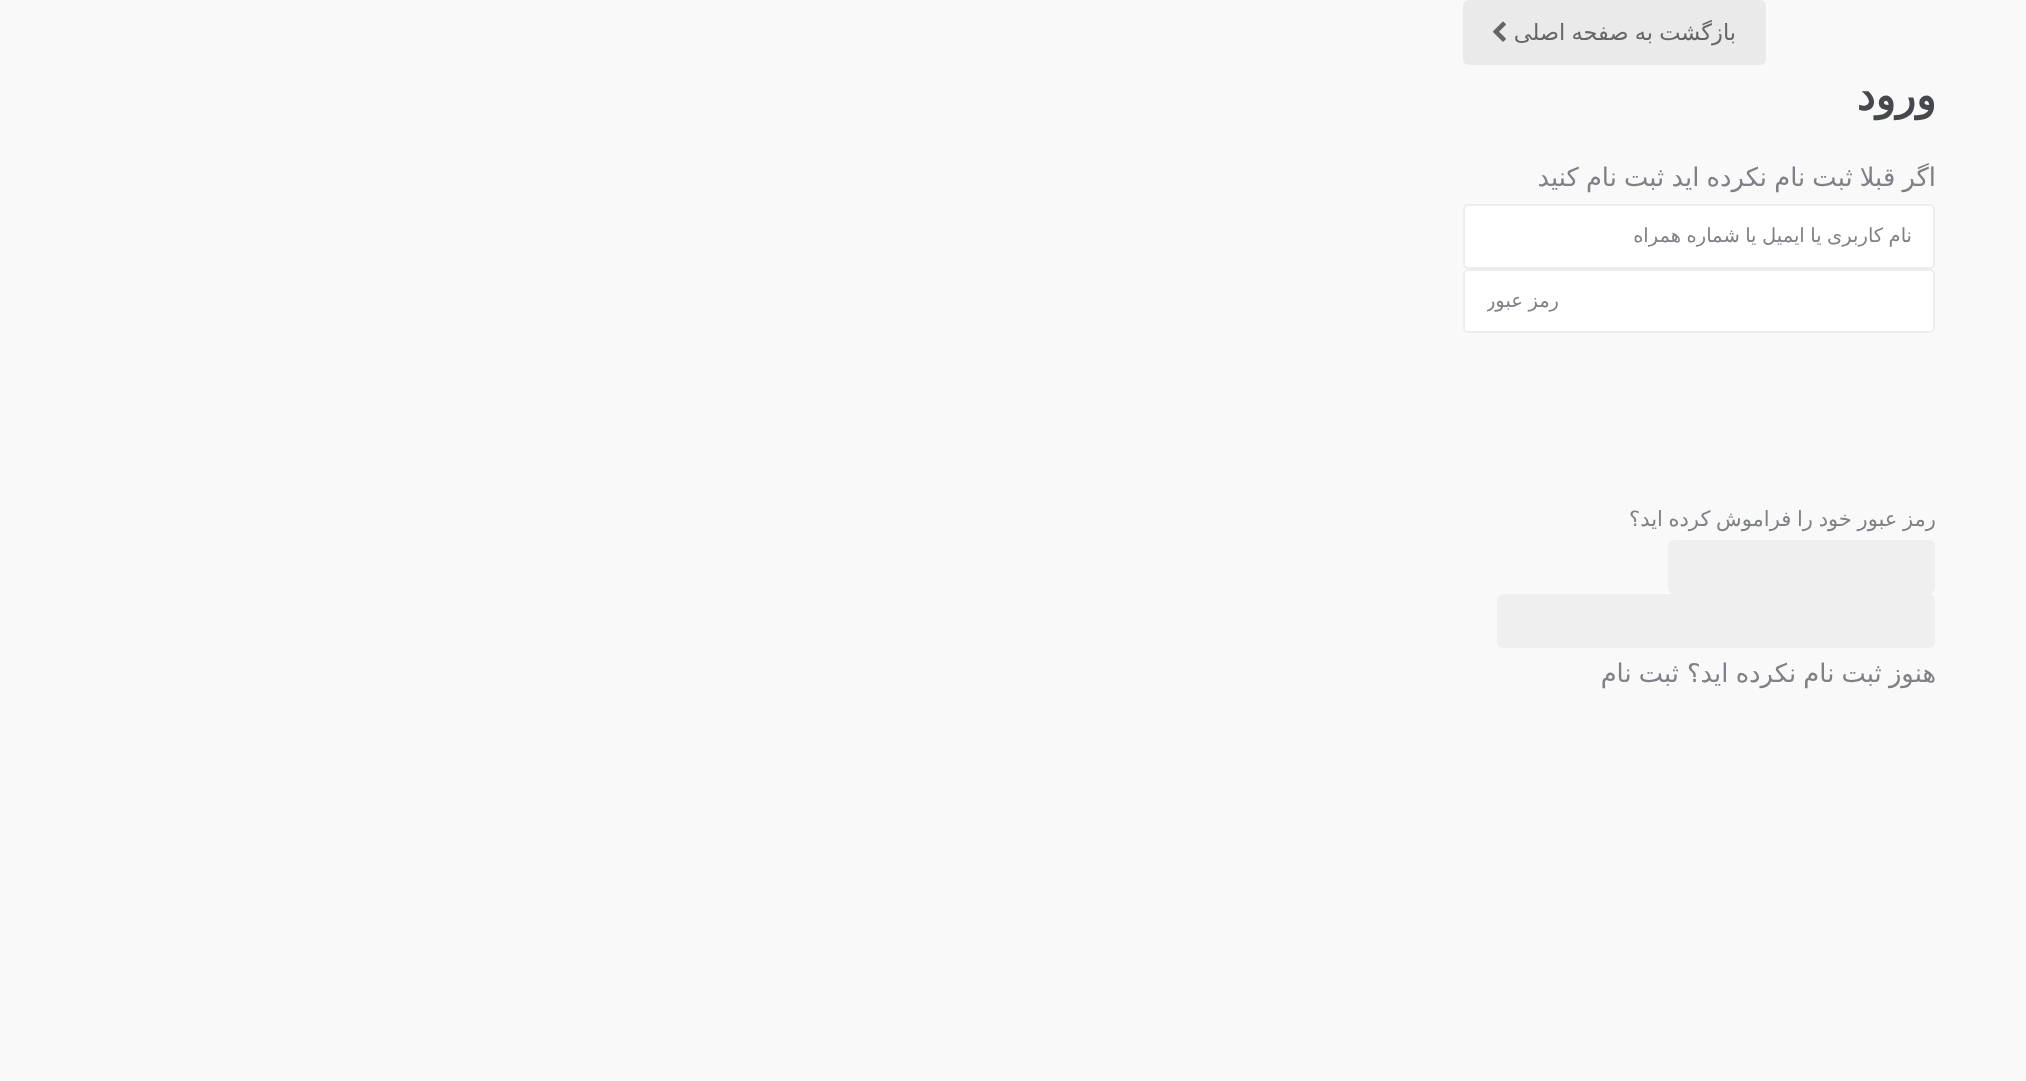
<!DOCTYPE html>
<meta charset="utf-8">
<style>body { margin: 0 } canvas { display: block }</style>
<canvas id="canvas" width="2026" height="1081"></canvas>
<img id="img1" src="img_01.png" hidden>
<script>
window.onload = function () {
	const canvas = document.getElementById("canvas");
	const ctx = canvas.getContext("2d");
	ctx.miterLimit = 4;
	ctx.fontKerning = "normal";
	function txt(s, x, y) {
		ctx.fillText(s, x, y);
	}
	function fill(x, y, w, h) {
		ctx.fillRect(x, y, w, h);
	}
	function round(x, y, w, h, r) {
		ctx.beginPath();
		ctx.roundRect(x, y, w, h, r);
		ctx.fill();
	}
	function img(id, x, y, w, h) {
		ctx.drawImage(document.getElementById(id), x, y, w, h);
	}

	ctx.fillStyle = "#F9F9F9";
	fill(0, 0, 2026, 1081);
	ctx.fillStyle = "#EAEAEA";
	round(1463, 0, 303, 65, 6);
	img("img1", 1493, 21, 13, 21);
	ctx.fillStyle = "#FFFFFF";
	ctx.beginPath();
	ctx.roundRect(1464, 205, 470, 63, 4);
	ctx.fill();
	ctx.strokeStyle = "#EDEDED";
	ctx.lineWidth = 2;
	ctx.stroke();
	ctx.beginPath();
	ctx.roundRect(1464, 270, 470, 62, 4);
	ctx.fill();
	ctx.stroke();
	ctx.fillStyle = "#EFEFEF";
	round(1668, 540, 267, 54, 6);
	round(1497, 594, 438, 54, 6);
	ctx.wordSpacing = "-1px";
	ctx.direction = "rtl";
	ctx.font = "22.5px DejaVu Sans";
	ctx.fillStyle = "#666666";
	txt("بازگشت به صفحه اصلی", 1736, 40);
	ctx.wordSpacing = "0px";
	ctx.font = "bold 42px DejaVu Sans";
	ctx.fillStyle = "#46484D";
	txt("ورود", 1936, 110);
	ctx.wordSpacing = "-1px";
	ctx.font = "25.75px DejaVu Sans";
	ctx.fillStyle = "#7F8187";
	txt("اگر قبلا ثبت نام نکرده اید ثبت نام کنید", 1936, 186);
	ctx.wordSpacing = "-0.75px";
	ctx.font = "19.5px DejaVu Sans";
	txt("نام کاربری یا ایمیل یا شماره همراه", 1912, 242);
	ctx.save();
	ctx.beginPath();
	ctx.rect(1487, 290, 424, 22);
	ctx.clip();
	txt("رمز عبور", 1559, 307);
	ctx.restore();
	ctx.wordSpacing = "-1px";
	ctx.font = "21px DejaVu Sans";
	txt("رمز عبور خود را فراموش کرده اید؟", 1936, 526);
	ctx.font = "25.75px DejaVu Sans";
	txt("هنوز ثبت نام نکرده اید؟", 1936, 682);
	txt("ثبت نام", 1679, 682);
};
</script>
